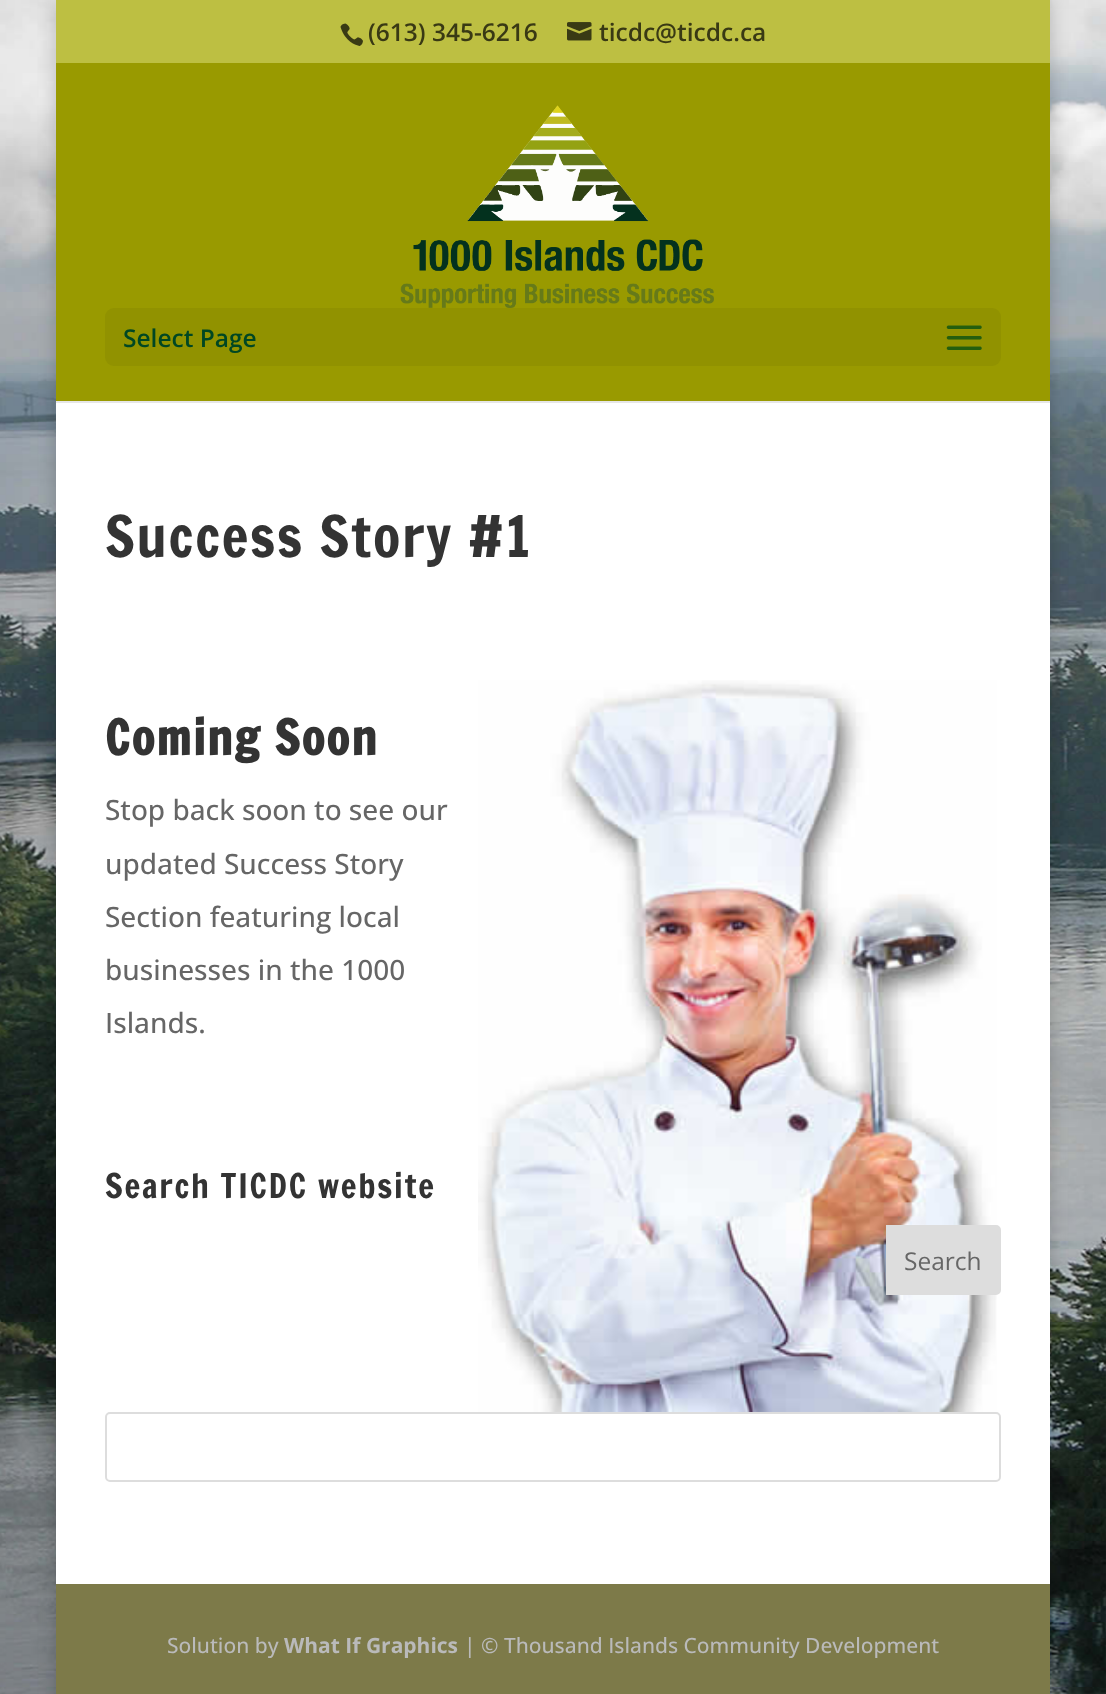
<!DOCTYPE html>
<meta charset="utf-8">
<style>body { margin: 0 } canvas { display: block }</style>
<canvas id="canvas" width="1106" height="1694"></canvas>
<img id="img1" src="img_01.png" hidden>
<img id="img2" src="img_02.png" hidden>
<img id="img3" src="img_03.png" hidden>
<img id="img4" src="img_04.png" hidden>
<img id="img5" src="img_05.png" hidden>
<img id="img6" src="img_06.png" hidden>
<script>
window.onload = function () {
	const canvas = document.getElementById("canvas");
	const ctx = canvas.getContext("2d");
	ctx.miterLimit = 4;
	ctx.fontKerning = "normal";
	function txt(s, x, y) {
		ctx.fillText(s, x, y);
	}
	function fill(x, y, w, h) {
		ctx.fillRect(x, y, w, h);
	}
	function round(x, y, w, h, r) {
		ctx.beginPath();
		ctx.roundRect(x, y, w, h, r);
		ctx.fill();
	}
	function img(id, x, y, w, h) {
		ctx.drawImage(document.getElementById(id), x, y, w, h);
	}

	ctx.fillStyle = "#FFFFFF";
	fill(0, 0, 1106, 1694);
	img("img1", 0, 0, 1106, 1694);
	ctx.fillStyle = "rgba(0, 0, 0, 0.2)";
	ctx.filter = "blur(9px)";
	ctx.beginPath();
	ctx.rect(56, 0, 994, 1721);
	ctx.fill();
	ctx.filter = "none";
	ctx.fillStyle = "#BDBF42";
	fill(56, 0, 994, 63);
	img("img2", 340, 23, 23, 23);
	img("img3", 567, 22, 25, 19);
	ctx.fillStyle = "#E6E6E6";
	fill(56, 401, 994, 2);
	ctx.fillStyle = "#999A00";
	fill(56, 63, 994, 338);
	img("img4", 400, 105, 314, 203);
	ctx.fillStyle = "#919200";
	round(105, 308, 896, 58, 9);
	img("img5", 946, 325, 36, 25);
	ctx.fillStyle = "#FFFFFF";
	fill(56, 403, 994, 1181);
	img("img6", 478, 680, 519, 733);
	ctx.fillStyle = "#DDDDDD";
	ctx.beginPath();
	ctx.roundRect(887, 1226, 113, 68, [0, 4, 4, 0]);
	ctx.fill();
	ctx.strokeStyle = "#DDDDDD";
	ctx.lineWidth = 2;
	ctx.stroke();
	ctx.fillStyle = "#FFFFFF";
	ctx.beginPath();
	ctx.roundRect(106, 1413, 894, 68, 4);
	ctx.fill();
	ctx.stroke();
	ctx.fillStyle = "#7D7A49";
	fill(56, 1584, 994, 110);
	ctx.font = "600 24.5px Open Sans";
	ctx.fillStyle = "#393914";
	txt("(613) 345-6216", 368, 41);
	txt("ticdc@ticdc.ca", 599, 41);
	ctx.fillStyle = "#004723";
	txt("Select Page", 123, 347);
	ctx.letterSpacing = "1.75px";
	ctx.font = "56px Francois One";
	ctx.fillStyle = "#333333";
	txt("Success Story #1", 105, 557);
	ctx.font = "bold 47.25px Francois One";
	txt("Coming Soon", 105, 755);
	ctx.letterSpacing = "0px";
	ctx.font = "500 28px Open Sans";
	ctx.fillStyle = "#666666";
	txt("Stop back soon to see our", 105, 820);
	txt("updated Success Story", 105, 874);
	txt("Section featuring local", 105, 927);
	txt("businesses in the 1000", 105, 980);
	txt("Islands.", 105, 1033);
	ctx.letterSpacing = "1.75px";
	ctx.font = "33.25px Francois One";
	ctx.fillStyle = "#333333";
	txt("Search TICDC website", 105, 1198);
	ctx.letterSpacing = "0px";
	ctx.font = "24.5px Open Sans";
	ctx.fillStyle = "#666666";
	txt("Search", 904, 1270);
	ctx.font = "500 21px Open Sans";
	ctx.fillStyle = "#BABABA";
	txt("Solution by", 167, 1653);
	ctx.font = "bold 21px Open Sans";
	txt("What If Graphics", 284, 1653);
	ctx.font = "500 21px Open Sans";
	txt("| © Thousand Islands Community Development", 464, 1653);
};
</script>
